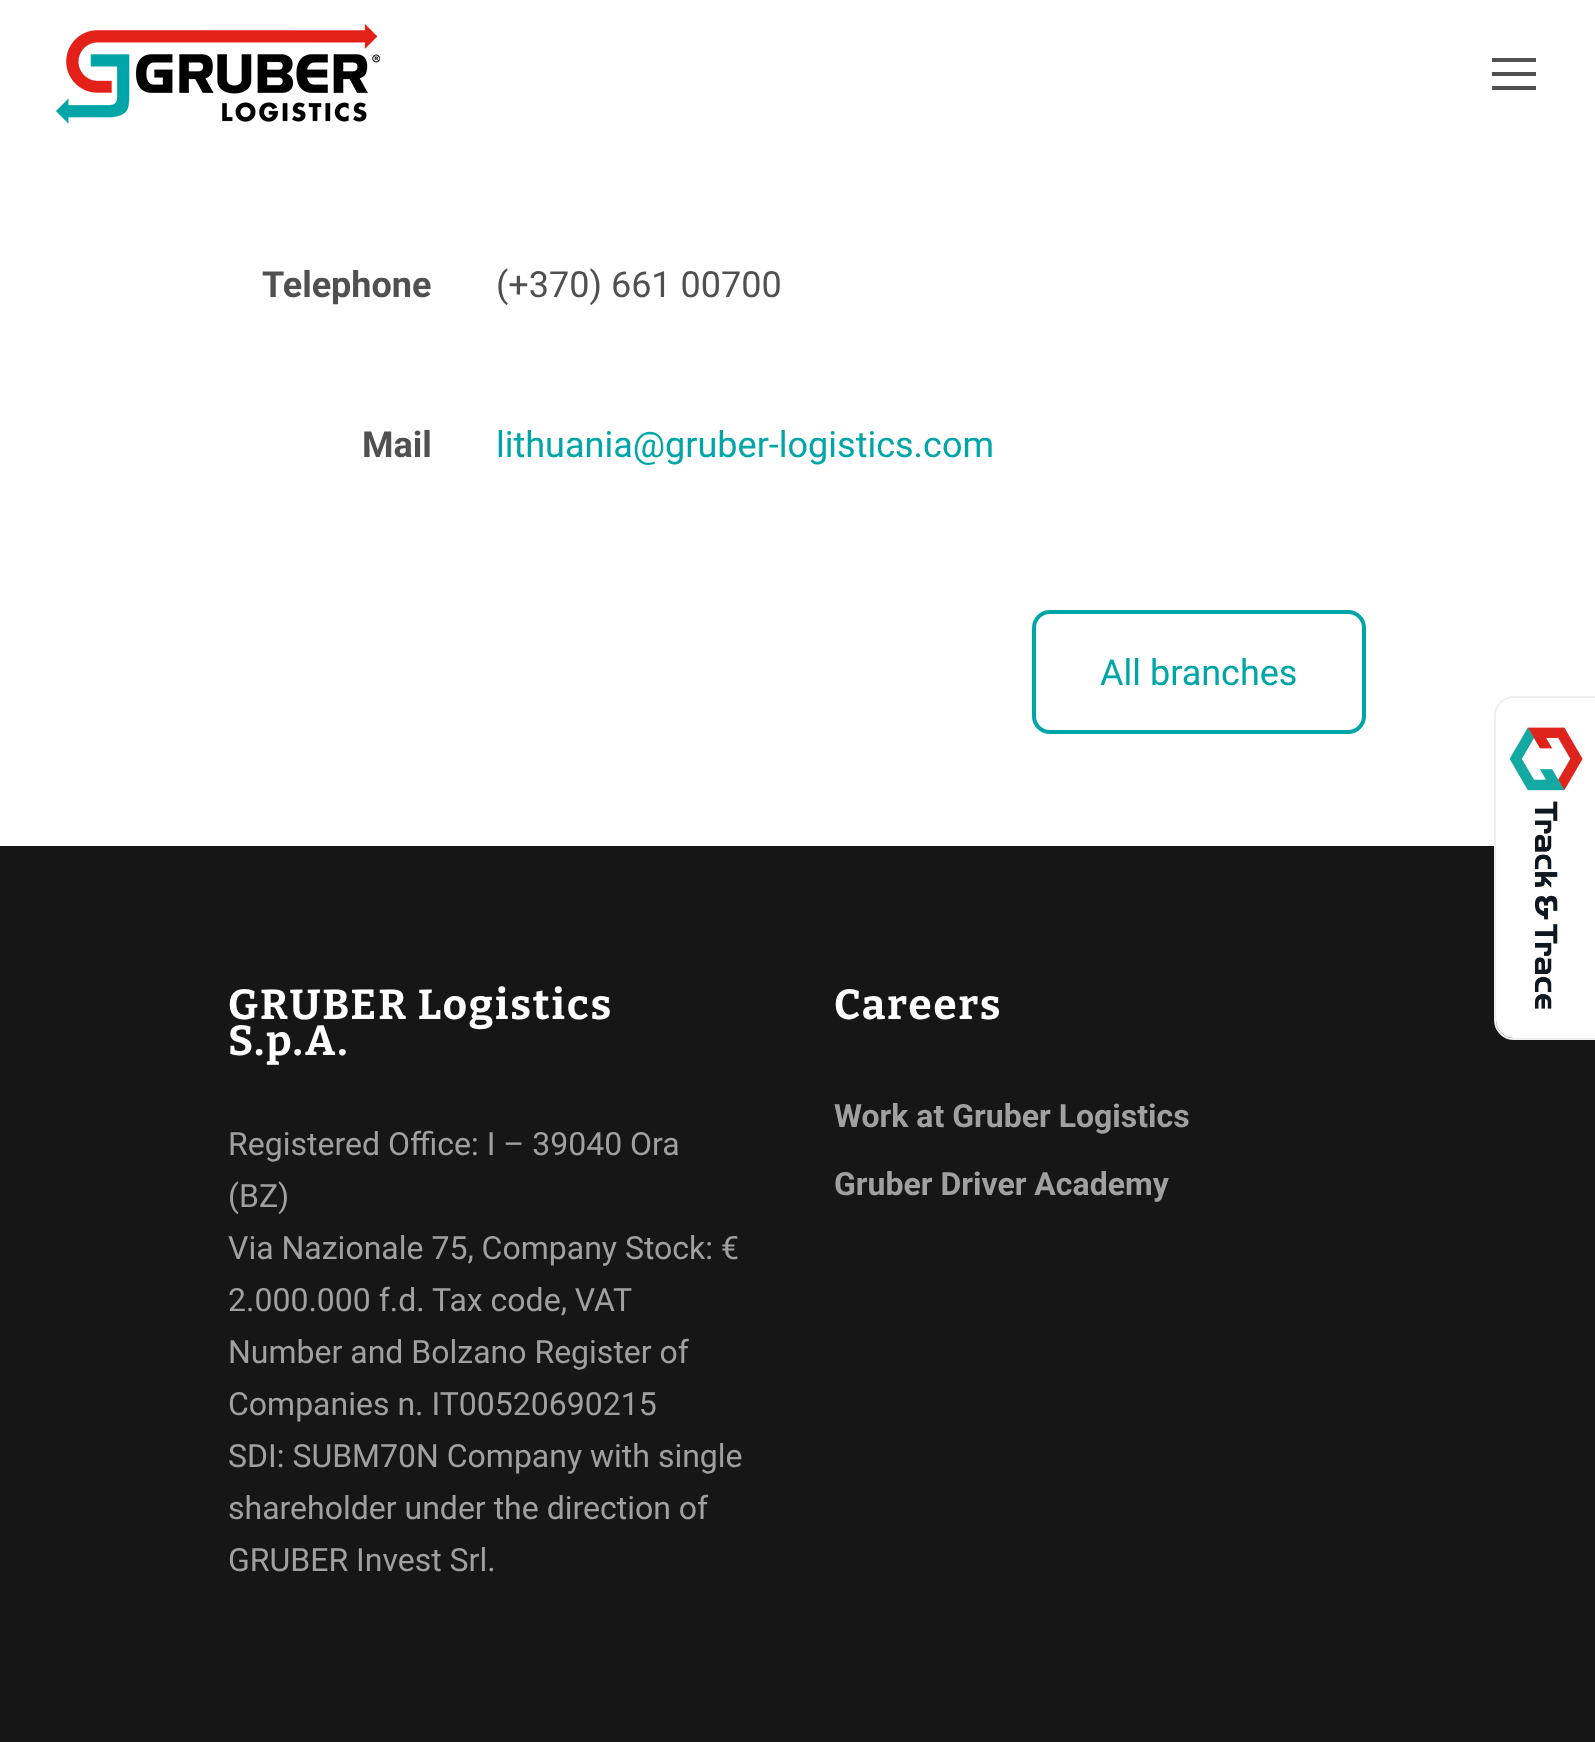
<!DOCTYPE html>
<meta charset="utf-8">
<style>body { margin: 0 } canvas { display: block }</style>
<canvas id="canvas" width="1595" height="1742"></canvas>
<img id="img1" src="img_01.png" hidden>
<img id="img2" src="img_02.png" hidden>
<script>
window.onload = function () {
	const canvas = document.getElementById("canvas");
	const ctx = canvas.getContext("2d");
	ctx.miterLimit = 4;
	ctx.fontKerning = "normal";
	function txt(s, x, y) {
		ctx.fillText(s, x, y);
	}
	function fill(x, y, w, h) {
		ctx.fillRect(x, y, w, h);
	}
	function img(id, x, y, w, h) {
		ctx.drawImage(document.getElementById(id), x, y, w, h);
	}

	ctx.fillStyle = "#FFFFFF";
	fill(0, 0, 1595, 1742);
	img("img1", 56, 24, 324, 100);
	ctx.fillStyle = "#505050";
	fill(1492, 58, 44, 4);
	fill(1492, 86, 44, 4);
	fill(1492, 72, 44, 4);
	ctx.beginPath();
	ctx.roundRect(1034, 612, 330, 120, 16);
	ctx.strokeStyle = "#00A6A7";
	ctx.lineWidth = 4;
	ctx.stroke();
	ctx.fillStyle = "#161616";
	fill(0, 846, 1595, 896);
	ctx.beginPath();
	ctx.moveTo(1514, 697);
	ctx.lineTo(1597, 697);
	ctx.lineTo(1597, 1039);
	ctx.lineTo(1514, 1039);
	ctx.bezierCurveTo(1503.5, 1039, 1495, 1030.5, 1495, 1020);
	ctx.lineTo(1495, 716);
	ctx.bezierCurveTo(1495, 705.5, 1503.5, 697, 1514, 697);
	ctx.closePath();
	ctx.strokeStyle = "#EEEEEE";
	ctx.lineWidth = 2;
	ctx.stroke();
	img("img2", 1496, 698, 99, 340);
	ctx.font = "bold 36px Roboto";
	ctx.fillStyle = "#505050";
	txt("Telephone", 262, 297);
	ctx.font = "36px Roboto";
	txt("(+370) 661 00700", 496, 297);
	ctx.font = "bold 36px Roboto";
	txt("Mail", 362, 457);
	ctx.font = "36px Roboto";
	ctx.fillStyle = "#00A6A7";
	txt("lithuania@gruber-logistics.com", 496, 457);
	txt("All branches", 1100, 685);
	ctx.letterSpacing = "2px";
	ctx.font = "100 42px Bitter";
	ctx.fillStyle = "#FFFFFF";
	txt("GRUBER Logistics", 228, 1019);
	txt("S.p.A.", 228, 1055);
	ctx.letterSpacing = "0px";
	ctx.font = "32px Roboto";
	ctx.fillStyle = "#A0A0A0";
	txt("Registered Office: I – 39040 Ora", 228, 1155);
	txt("(BZ)", 228, 1207);
	txt("Via Nazionale 75, Company Stock: €", 228, 1259);
	txt("2.000.000 f.d. Tax code, VAT", 228, 1311);
	txt("Number and Bolzano Register of", 228, 1363);
	txt("Companies n. IT00520690215", 228, 1415);
	txt("SDI: SUBM70N Company with single", 228, 1467);
	txt("shareholder under the direction of", 228, 1519);
	txt("GRUBER Invest Srl.", 228, 1571);
	ctx.letterSpacing = "2px";
	ctx.font = "100 42px Bitter";
	ctx.fillStyle = "#FFFFFF";
	txt("Careers", 834, 1019);
	ctx.letterSpacing = "0px";
	ctx.font = "bold 32px Roboto";
	ctx.fillStyle = "#A0A0A0";
	txt("Work at Gruber Logistics", 834, 1127);
	txt("Gruber Driver Academy", 834, 1195);
};
</script>
